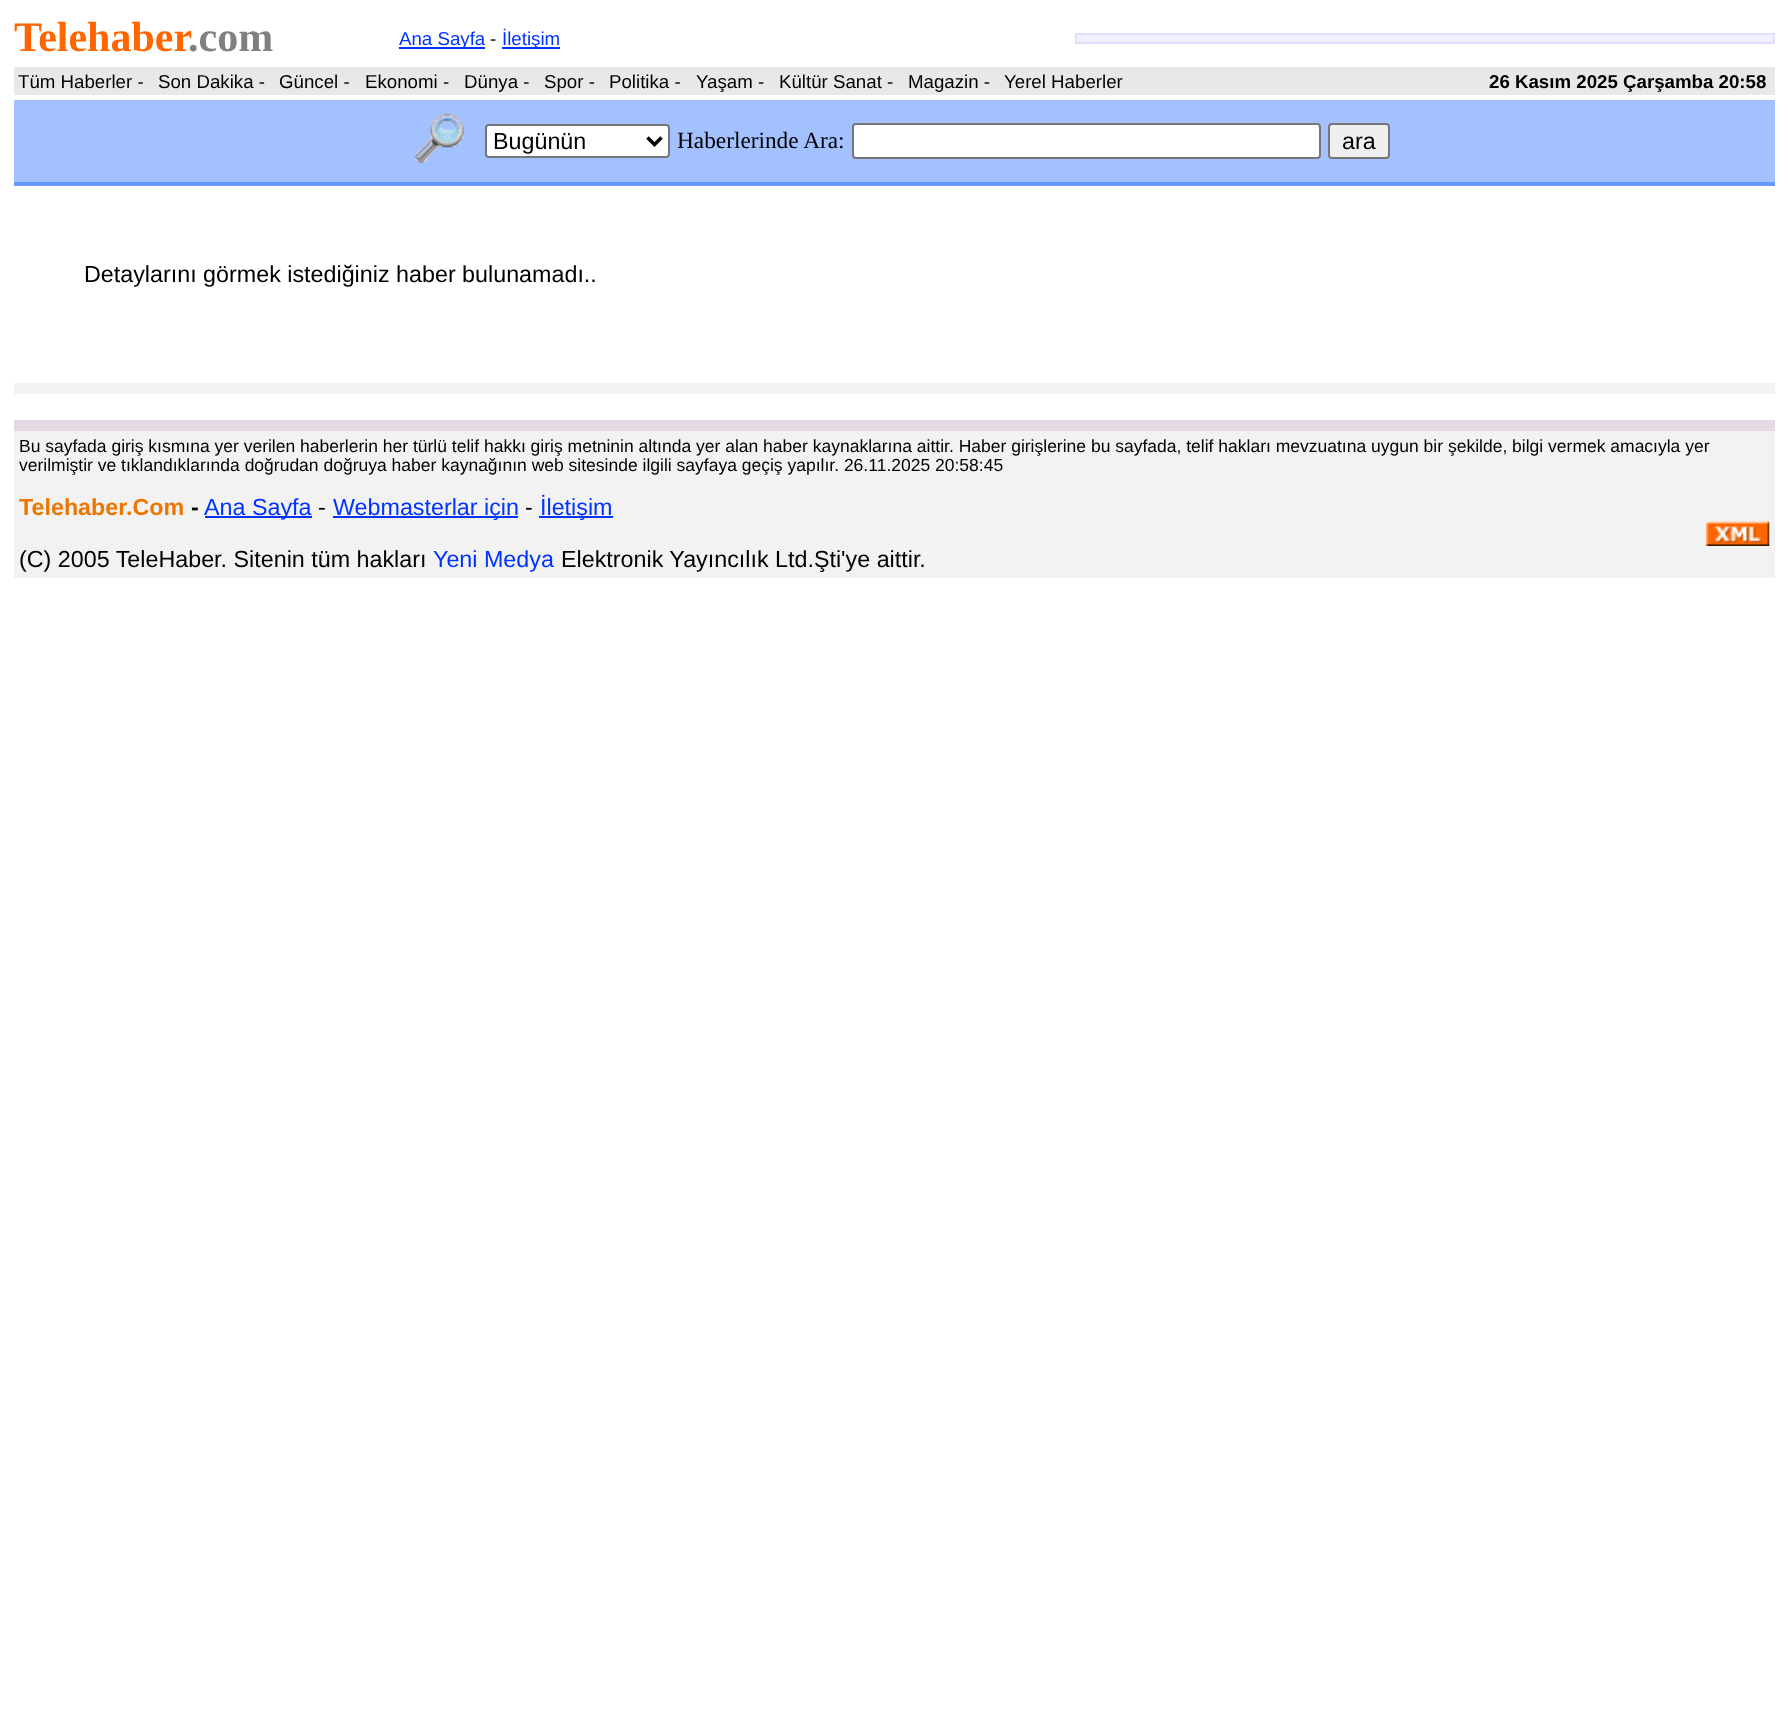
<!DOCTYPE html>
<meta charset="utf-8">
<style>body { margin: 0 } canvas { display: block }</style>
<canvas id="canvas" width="1788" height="1732"></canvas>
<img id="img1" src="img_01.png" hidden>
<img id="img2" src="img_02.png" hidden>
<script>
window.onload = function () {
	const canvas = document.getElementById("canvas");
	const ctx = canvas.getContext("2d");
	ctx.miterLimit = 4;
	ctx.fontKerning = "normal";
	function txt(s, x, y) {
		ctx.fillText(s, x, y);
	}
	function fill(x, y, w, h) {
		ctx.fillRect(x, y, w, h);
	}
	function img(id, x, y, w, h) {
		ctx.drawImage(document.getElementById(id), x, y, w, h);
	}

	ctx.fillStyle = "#FFFFFF";
	fill(0, 0, 1788, 1732);
	ctx.fillStyle = "#0033FF";
	fill(399, 47, 86, 2);
	fill(502, 47, 58, 2);
	ctx.fillStyle = "#F0F0FF";
	fill(1077, 35, 696, 7);
	ctx.fillStyle = "#DFDFFF";
	fill(1075, 33, 700, 2);
	fill(1773, 33, 2, 11);
	fill(1075, 42, 700, 2);
	fill(1075, 33, 2, 11);
	ctx.fillStyle = "#E8E8E8";
	fill(14, 67, 1761, 28);
	ctx.fillStyle = "#A4C1FF";
	fill(14, 100, 1761, 82);
	img("img1", 414, 113, 51, 51);
	ctx.fillStyle = "#FFFFFF";
	ctx.beginPath();
	ctx.roundRect(486, 125, 183, 32, 3);
	ctx.fill();
	ctx.strokeStyle = "#767676";
	ctx.lineWidth = 2;
	ctx.stroke();
	ctx.beginPath();
	ctx.moveTo(647.5, 137.5);
	ctx.lineTo(654.5, 144.5);
	ctx.lineTo(661.5, 137.5);
	ctx.strokeStyle = "#000000";
	ctx.lineWidth = 3.5;
	ctx.stroke();
	ctx.beginPath();
	ctx.roundRect(853, 124, 467, 34, 3);
	ctx.fill();
	ctx.strokeStyle = "#767676";
	ctx.lineWidth = 2;
	ctx.stroke();
	ctx.fillStyle = "#EFEFEF";
	ctx.beginPath();
	ctx.roundRect(1329, 124, 60, 34, 3);
	ctx.fill();
	ctx.stroke();
	ctx.fillStyle = "#6799FF";
	fill(14, 182, 1761, 4);
	ctx.fillStyle = "#F3F3F3";
	fill(14, 383, 1761, 11);
	ctx.fillStyle = "#F2F2F2";
	fill(14, 431, 1761, 147);
	ctx.fillStyle = "#E6D9E6";
	fill(14, 420, 1761, 11);
	ctx.fillStyle = "#0033FF";
	fill(205, 516, 107, 2);
	fill(333, 516, 185, 2);
	fill(539, 516, 74, 2);
	img("img2", 1706, 521, 64, 25);
	ctx.font = "bold 42px Liberation Serif";
	ctx.fillStyle = "#FF6600";
	txt("Telehaber", 14, 51);
	ctx.fillStyle = "#808080";
	txt(".com", 188, 51);
	ctx.font = "18.7px Liberation Sans";
	ctx.fillStyle = "#0033FF";
	txt("Ana Sayfa", 399, 45);
	ctx.fillStyle = "#000000";
	txt("-", 490, 45);
	ctx.fillStyle = "#0033FF";
	txt("İletişim", 502, 45);
	ctx.fillStyle = "#000000";
	txt("Tüm Haberler -", 18, 88);
	txt("Son Dakika -", 158, 88);
	txt("Güncel -", 279, 88);
	txt("Ekonomi -", 365, 88);
	txt("Dünya -", 464, 88);
	txt("Spor -", 544, 88);
	txt("Politika -", 609, 88);
	txt("Yaşam -", 696, 88);
	txt("Kültür Sanat -", 779, 88);
	txt("Magazin -", 908, 88);
	txt("Yerel Haberler", 1004, 88);
	ctx.font = "bold 18.7px Liberation Sans";
	txt("26 Kasım 2025 Çarşamba 20:58", 1489, 88);
	ctx.font = "23.3px Liberation Sans";
	txt("Bugünün", 493, 149);
	ctx.font = "23.3px Liberation Serif";
	txt("Haberlerinde Ara:", 677, 148);
	ctx.font = "23.3px Liberation Sans";
	txt("ara", 1342, 149);
	txt("Detaylarını görmek istediğiniz haber bulunamadı..", 84, 282);
	ctx.font = "17.5px Liberation Sans";
	txt("Bu sayfada giriş kısmına yer verilen haberlerin her türlü telif hakkı giriş metninin altında yer alan haber kaynaklarına aittir. Haber girişlerine bu sayfada, telif hakları mevzuatına uygun bir şekilde, bilgi vermek amacıyla yer", 19, 452);
	txt("verilmiştir ve tıklandıklarında doğrudan doğruya haber kaynağının web sitesinde ilgili sayfaya geçiş yapılır. 26.11.2025 20:58:45", 19, 471);
	ctx.font = "bold 23.3px Liberation Sans";
	ctx.fillStyle = "#EC7600";
	txt("Telehaber.Com", 19, 515);
	ctx.fillStyle = "#000000";
	txt("-", 191, 515);
	ctx.font = "23.3px Liberation Sans";
	ctx.fillStyle = "#0033FF";
	txt("Ana Sayfa", 204, 515);
	ctx.fillStyle = "#000000";
	txt("-", 318, 515);
	ctx.fillStyle = "#0033FF";
	txt("Webmasterlar için", 333, 515);
	ctx.fillStyle = "#000000";
	txt("-", 525, 515);
	ctx.fillStyle = "#0033FF";
	txt("İletişim", 540, 515);
	ctx.fillStyle = "#000000";
	txt("(C) 2005 TeleHaber. Sitenin tüm hakları", 19, 567);
	ctx.fillStyle = "#0033FF";
	txt("Yeni Medya", 433, 567);
	ctx.fillStyle = "#000000";
	txt("Elektronik Yayıncılık Ltd.Şti'ye aittir.", 561, 567);
};
</script>
